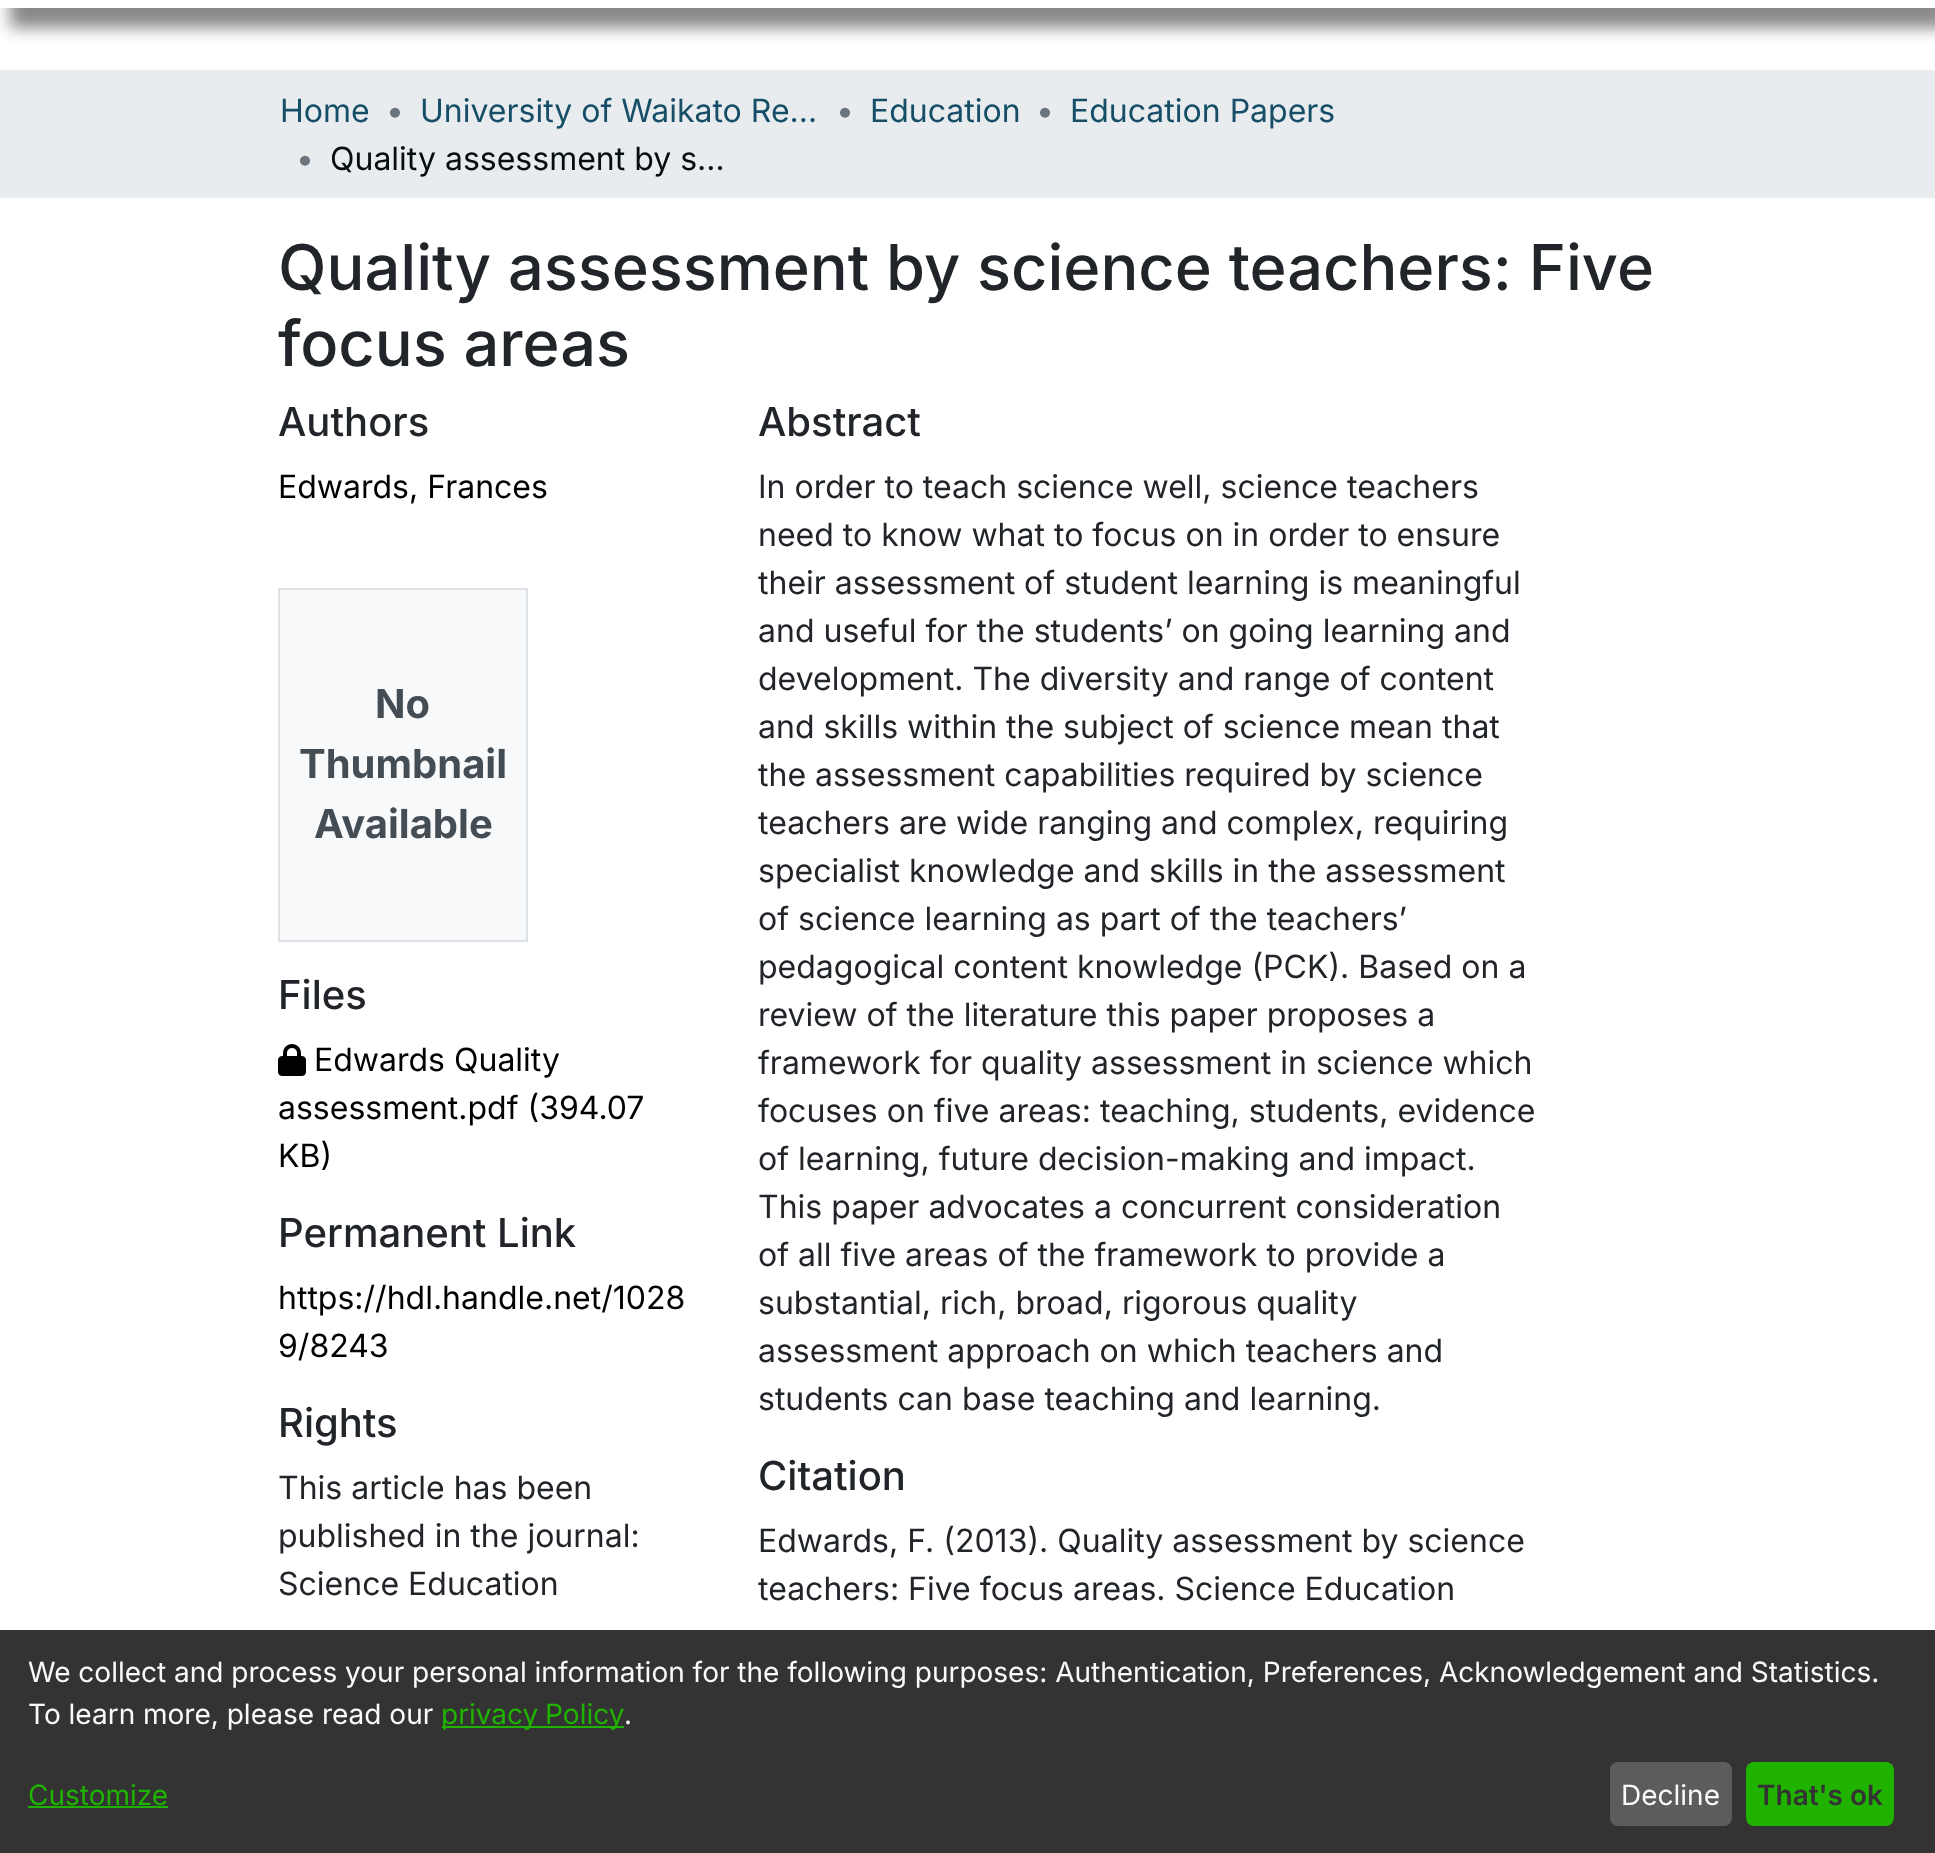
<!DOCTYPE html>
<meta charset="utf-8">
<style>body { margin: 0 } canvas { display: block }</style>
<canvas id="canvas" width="1935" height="1853"></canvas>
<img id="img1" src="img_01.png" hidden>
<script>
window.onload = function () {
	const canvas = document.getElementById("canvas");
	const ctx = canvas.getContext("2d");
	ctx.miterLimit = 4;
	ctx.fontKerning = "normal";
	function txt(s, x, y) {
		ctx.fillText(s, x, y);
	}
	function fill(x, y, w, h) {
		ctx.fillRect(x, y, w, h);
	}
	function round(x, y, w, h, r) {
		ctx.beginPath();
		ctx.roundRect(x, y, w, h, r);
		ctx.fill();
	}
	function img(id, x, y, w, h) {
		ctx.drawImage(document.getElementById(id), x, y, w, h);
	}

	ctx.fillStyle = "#FFFFFF";
	fill(0, 0, 1935, 1853);
	ctx.save();
	ctx.beginPath();
	ctx.rect(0, 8, 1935, 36);
	ctx.clip();
	ctx.fillStyle = "#888888";
	ctx.filter = "blur(8px)";
	ctx.beginPath();
	ctx.rect(10, -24, 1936, 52);
	ctx.fill();
	ctx.filter = "none";
	ctx.restore();
	ctx.fillStyle = "#E9ECEF";
	fill(0, 70, 1935, 128);
	ctx.fillStyle = "#F8F9FA";
	ctx.beginPath();
	ctx.rect(279, 589, 248, 352);
	ctx.fill();
	ctx.strokeStyle = "#DEE2E6";
	ctx.lineWidth = 2;
	ctx.stroke();
	img("img1", 278, 1044, 28, 32);
	ctx.fillStyle = "#333333";
	fill(0, 1630, 1935, 223);
	ctx.fillStyle = "#1FB300";
	fill(442, 1726, 182, 2);
	fill(28, 1806, 140, 2);
	ctx.fillStyle = "#5C5C5C";
	round(1610, 1762, 122, 64, 8);
	ctx.fillStyle = "#1FB300";
	round(1746, 1762, 148, 64, 8);
	ctx.font = "32px Inter";
	ctx.fillStyle = "#154E66";
	txt("Home", 280, 122);
	ctx.fillStyle = "#6C757D";
	txt("•", 386, 122);
	ctx.fillStyle = "#154E66";
	txt("University of Waikato Re…", 420, 122);
	ctx.fillStyle = "#6C757D";
	txt("•", 836, 122);
	ctx.fillStyle = "#154E66";
	txt("Education", 870, 122);
	ctx.fillStyle = "#6C757D";
	txt("•", 1036, 122);
	ctx.fillStyle = "#154E66";
	txt("Education Papers", 1070, 122);
	ctx.fillStyle = "#6C757D";
	txt("•", 296, 170);
	ctx.fillStyle = "#040D11";
	txt("Quality assessment by s…", 330, 170);
	ctx.font = "500 63.1px Inter";
	ctx.fillStyle = "#212529";
	txt("Quality assessment by science teachers: Five", 278, 290);
	txt("focus areas", 278, 366);
	ctx.font = "500 40px Inter";
	txt("Authors", 278, 436);
	ctx.font = "32px Inter";
	ctx.fillStyle = "#000000";
	txt("Edwards, Frances", 278, 498);
	ctx.font = "bold 40px Inter";
	ctx.fillStyle = "#444C54";
	txt("No", 375, 718);
	txt("Thumbnail", 299, 778);
	txt("Available", 314, 838);
	ctx.font = "500 40px Inter";
	ctx.fillStyle = "#212529";
	txt("Files", 278, 1009);
	ctx.font = "32px Inter";
	ctx.fillStyle = "#000000";
	txt("Edwards Quality", 314, 1071);
	txt("assessment.pdf (394.07", 278, 1119);
	txt("KB)", 278, 1167);
	ctx.font = "500 40px Inter";
	ctx.fillStyle = "#212529";
	txt("Permanent Link", 278, 1247);
	ctx.font = "32px Inter";
	ctx.fillStyle = "#000000";
	txt("https://hdl.handle.net/1028", 278, 1309);
	txt("9/8243", 278, 1357);
	ctx.font = "500 40px Inter";
	ctx.fillStyle = "#212529";
	txt("Rights", 278, 1437);
	ctx.font = "32px Inter";
	txt("This article has been", 278, 1499);
	txt("published in the journal:", 278, 1547);
	txt("Science Education", 278, 1595);
	ctx.font = "500 40px Inter";
	txt("Abstract", 758, 436);
	ctx.font = "32px Inter";
	txt("In order to teach science well, science teachers", 758, 498);
	txt("need to know what to focus on in order to ensure", 758, 546);
	txt("their assessment of student learning is meaningful", 758, 594);
	txt("and useful for the students’ on going learning and", 758, 642);
	txt("development. The diversity and range of content", 758, 690);
	txt("and skills within the subject of science mean that", 758, 738);
	txt("the assessment capabilities required by science", 758, 786);
	txt("teachers are wide ranging and complex, requiring", 758, 834);
	txt("specialist knowledge and skills in the assessment", 758, 882);
	txt("of science learning as part of the teachers’", 758, 930);
	txt("pedagogical content knowledge (PCK). Based on a", 758, 978);
	txt("review of the literature this paper proposes a", 758, 1026);
	txt("framework for quality assessment in science which", 758, 1074);
	txt("focuses on five areas: teaching, students, evidence", 758, 1122);
	txt("of learning, future decision-making and impact.", 758, 1170);
	txt("This paper advocates a concurrent consideration", 758, 1218);
	txt("of all five areas of the framework to provide a", 758, 1266);
	txt("substantial, rich, broad, rigorous quality", 758, 1314);
	txt("assessment approach on which teachers and", 758, 1362);
	txt("students can base teaching and learning.", 758, 1410);
	ctx.font = "500 40px Inter";
	txt("Citation", 758, 1490);
	ctx.font = "32px Inter";
	txt("Edwards, F. (2013). Quality assessment by science", 758, 1552);
	txt("teachers: Five focus areas. Science Education", 758, 1600);
	ctx.font = "28px Inter";
	ctx.fillStyle = "#FAFAFA";
	txt("We collect and process your personal information for the following purposes: Authentication, Preferences, Acknowledgement and Statistics.", 28, 1682);
	txt("To learn more, please read our", 28, 1724);
	ctx.wordSpacing = "-1px";
	ctx.fillStyle = "#1FB300";
	txt("privacy Policy", 441, 1724);
	ctx.wordSpacing = "0px";
	ctx.fillStyle = "#FAFAFA";
	txt(".", 624, 1724);
	ctx.fillStyle = "#1FB300";
	txt("Customize", 28, 1805);
	ctx.fillStyle = "#FAFAFA";
	txt("Decline", 1621, 1805);
	ctx.font = "600 28px Inter";
	ctx.fillStyle = "#333333";
	txt("That's ok", 1757, 1805);
};
</script>
